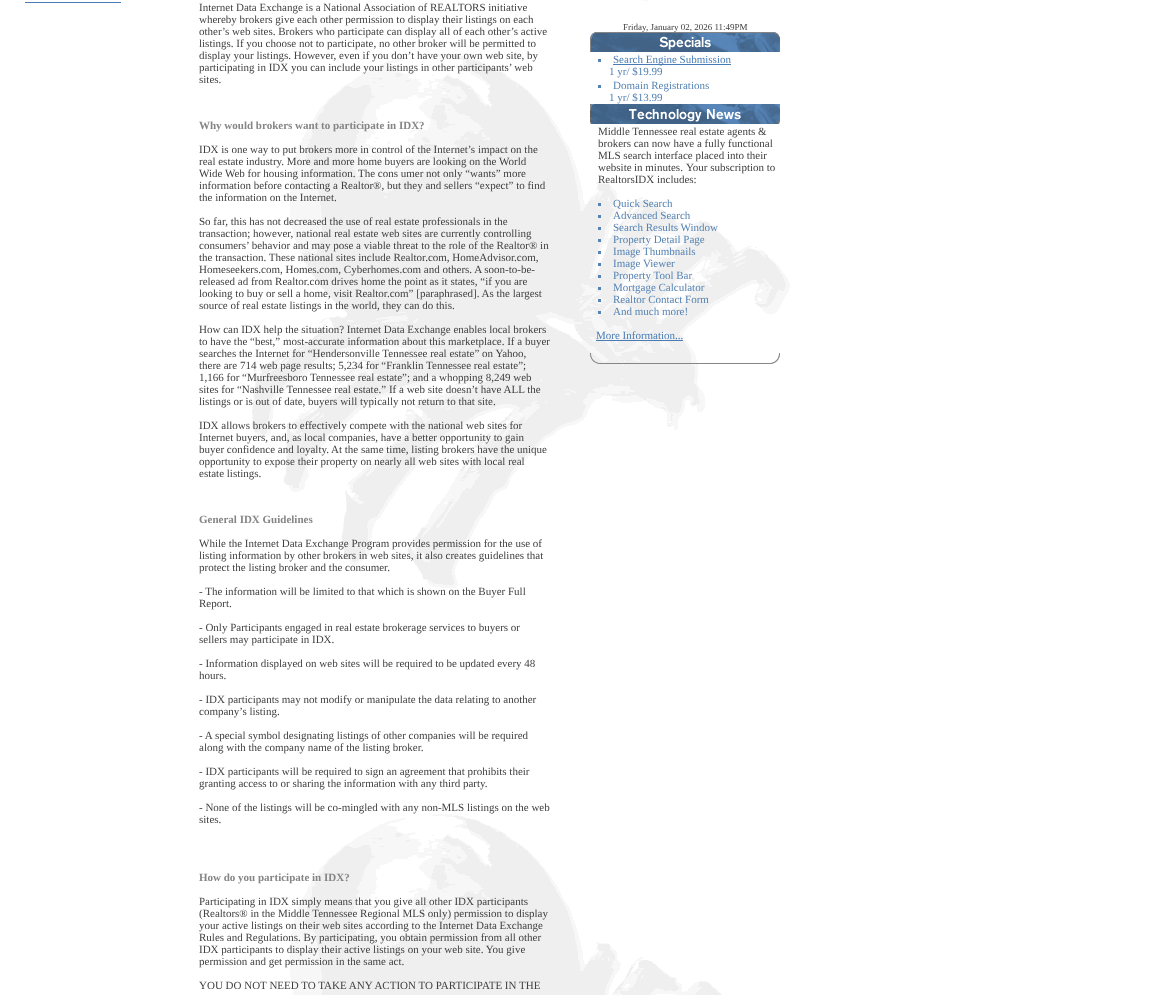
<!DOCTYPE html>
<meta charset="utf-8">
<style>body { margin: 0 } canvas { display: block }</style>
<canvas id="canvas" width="1149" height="995"></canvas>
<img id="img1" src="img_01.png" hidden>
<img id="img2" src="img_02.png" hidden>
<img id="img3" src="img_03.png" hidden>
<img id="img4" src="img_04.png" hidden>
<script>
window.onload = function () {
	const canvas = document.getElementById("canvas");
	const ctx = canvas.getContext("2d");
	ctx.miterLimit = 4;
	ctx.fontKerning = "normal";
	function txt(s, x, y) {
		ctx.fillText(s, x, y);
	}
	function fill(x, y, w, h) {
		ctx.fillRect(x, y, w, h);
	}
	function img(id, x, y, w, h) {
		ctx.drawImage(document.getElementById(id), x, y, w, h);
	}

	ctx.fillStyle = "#FFFFFF";
	fill(0, 0, 1149, 995);
	img("img1", 0, 0, 1149, 995);
	ctx.fillStyle = "#497CB4";
	fill(25, 2, 96, 1);
	ctx.fillStyle = "#F9F9F9";
	fill(642, 0, 6, 1);
	img("img2", 590, 32, 190, 20);
	ctx.fillStyle = "#5683B3";
	fill(598, 59, 3, 3);
	ctx.fillStyle = "#497CB4";
	fill(613, 64, 118, 1);
	ctx.fillStyle = "#5683B3";
	fill(598, 85, 3, 3);
	img("img3", 590, 104, 190, 20);
	fill(598, 203, 3, 3);
	fill(598, 215, 3, 3);
	fill(598, 227, 3, 3);
	fill(598, 239, 3, 3);
	fill(598, 251, 3, 3);
	fill(598, 263, 3, 3);
	fill(598, 275, 3, 3);
	fill(598, 287, 3, 3);
	fill(598, 299, 3, 3);
	fill(598, 311, 3, 3);
	ctx.fillStyle = "#497CB4";
	fill(596, 340, 87, 1);
	img("img4", 590, 353, 190, 11);
	ctx.font = "11px Liberation Serif";
	ctx.fillStyle = "#414141";
	txt("Internet Data Exchange is a National Association of REALTORS initiative", 199, 11);
	txt("whereby brokers give each other permission to display their listings on each", 199, 23);
	txt("other’s web sites. Brokers who participate can display all of each other’s active", 199, 35);
	txt("listings. If you choose not to participate, no other broker will be permitted to", 199, 47);
	txt("display your listings. However, even if you don’t have your own web site, by", 199, 59);
	txt("participating in IDX you can include your listings in other participants’ web", 199, 71);
	txt("sites.", 199, 83);
	ctx.font = "bold 11px Liberation Serif";
	ctx.fillStyle = "#858585";
	txt("Why would brokers want to participate in IDX?", 199, 129);
	ctx.font = "11px Liberation Serif";
	ctx.fillStyle = "#414141";
	txt("IDX is one way to put brokers more in control of the Internet’s impact on the", 199, 153);
	txt("real estate industry. More and more home buyers are looking on the World", 199, 165);
	txt("Wide Web for housing information. The cons umer not only “wants” more", 199, 177);
	txt("information before contacting a Realtor®, but they and sellers “expect” to find", 199, 189);
	txt("the information on the Internet.", 199, 201);
	txt("So far, this has not decreased the use of real estate professionals in the", 199, 225);
	txt("transaction; however, national real estate web sites are currently controlling", 199, 237);
	txt("consumers’ behavior and may pose a viable threat to the role of the Realtor® in", 199, 249);
	txt("the transaction. These national sites include Realtor.com, HomeAdvisor.com,", 199, 261);
	txt("Homeseekers.com, Homes.com, Cyberhomes.com and others. A soon-to-be-", 199, 273);
	txt("released ad from Realtor.com drives home the point as it states, “if you are", 199, 285);
	txt("looking to buy or sell a home, visit Realtor.com” [paraphrased]. As the largest", 199, 297);
	txt("source of real estate listings in the world, they can do this.", 199, 309);
	txt("How can IDX help the situation? Internet Data Exchange enables local brokers", 199, 333);
	txt("to have the “best,” most-accurate information about this marketplace. If a buyer", 199, 345);
	txt("searches the Internet for “Hendersonville Tennessee real estate” on Yahoo,", 199, 357);
	txt("there are 714 web page results; 5,234 for “Franklin Tennessee real estate”;", 199, 369);
	txt("1,166 for “Murfreesboro Tennessee real estate”; and a whopping 8,249 web", 199, 381);
	txt("sites for “Nashville Tennessee real estate.” If a web site doesn’t have ALL the", 199, 393);
	txt("listings or is out of date, buyers will typically not return to that site.", 199, 405);
	txt("IDX allows brokers to effectively compete with the national web sites for", 199, 429);
	txt("Internet buyers, and, as local companies, have a better opportunity to gain", 199, 441);
	txt("buyer confidence and loyalty.", 199, 453);
	txt("At the same time, listing brokers have the unique", 331, 453);
	txt("opportunity to expose their property on nearly all web sites with local real", 199, 465);
	txt("estate listings.", 199, 477);
	ctx.font = "bold 11px Liberation Serif";
	ctx.fillStyle = "#858585";
	txt("General IDX Guidelines", 199, 523);
	ctx.font = "11px Liberation Serif";
	ctx.fillStyle = "#414141";
	txt("While the Internet Data Exchange Program provides permission for the use of", 199, 547);
	txt("listing information by other brokers in web sites, it also creates guidelines that", 199, 559);
	txt("protect the listing broker and the consumer.", 199, 571);
	txt("- The information will be limited to that which is shown on the Buyer Full", 199, 595);
	txt("Report.", 199, 607);
	txt("- Only Participants engaged in real estate brokerage services to buyers or", 199, 631);
	txt("sellers may participate in IDX.", 199, 643);
	txt("- Information displayed on web sites will be required to be updated every 48", 199, 667);
	txt("hours.", 199, 679);
	txt("- IDX participants may not modify or manipulate the data relating to another", 199, 703);
	txt("company’s listing.", 199, 715);
	txt("- A special symbol designating listings of other companies will be required", 199, 739);
	txt("along with the company name of the listing broker.", 199, 751);
	txt("- IDX participants will be required to sign an agreement that prohibits their", 199, 775);
	txt("granting access to or sharing the information with any third party.", 199, 787);
	txt("- None of the listings will be co-mingled with any non-MLS listings on the web", 199, 811);
	txt("sites.", 199, 823);
	ctx.font = "bold 11px Liberation Serif";
	ctx.fillStyle = "#858585";
	txt("How do you participate in IDX?", 199, 881);
	ctx.font = "11px Liberation Serif";
	ctx.fillStyle = "#414141";
	txt("Participating in IDX simply means that you give all other IDX participants", 199, 905);
	txt("(Realtors® in the Middle Tennessee Regional MLS only) permission to display", 199, 917);
	txt("your active listings on their web sites according to the Internet Data Exchange", 199, 929);
	txt("Rules and Regulations. By participating, you obtain permission from all other", 199, 941);
	txt("IDX participants to display their active listings on your web site. You give", 199, 953);
	txt("permission and get permission in the same act.", 199, 965);
	txt("YOU DO NOT NEED TO TAKE ANY ACTION TO PARTICIPATE IN THE", 199, 989);
	ctx.font = "9px Liberation Serif";
	txt("Friday, January 02, 2026 11:49PM", 623, 30);
	ctx.font = "11px Liberation Serif";
	ctx.fillStyle = "#497CB4";
	txt("Search Engine Submission", 613, 63);
	ctx.fillStyle = "#5683B3";
	txt("1 yr/ $19.99", 609, 75);
	txt("Domain Registrations", 613, 89);
	txt("1 yr/ $13.99", 609, 101);
	ctx.fillStyle = "#414141";
	txt("Middle Tennessee real estate agents &", 598, 135);
	txt("brokers can now have a fully functional", 598, 147);
	txt("MLS search interface placed into their", 598, 159);
	txt("website", 598, 171);
	txt("in minutes.", 634, 171);
	txt("Your subscription to", 686, 171);
	txt("RealtorsIDX includes:", 598, 183);
	ctx.fillStyle = "#5683B3";
	txt("Quick Search", 613, 207);
	txt("Advanced Search", 613, 219);
	txt("Search Results Window", 613, 231);
	txt("Property Detail Page", 613, 243);
	txt("Image Thumbnails", 613, 255);
	txt("Image Viewer", 613, 267);
	txt("Property Tool Bar", 613, 279);
	txt("Mortgage Calculator", 613, 291);
	txt("Realtor Contact Form", 613, 303);
	txt("And much more!", 613, 315);
	ctx.fillStyle = "#497CB4";
	txt("More Information...", 596, 339);
};
</script>
